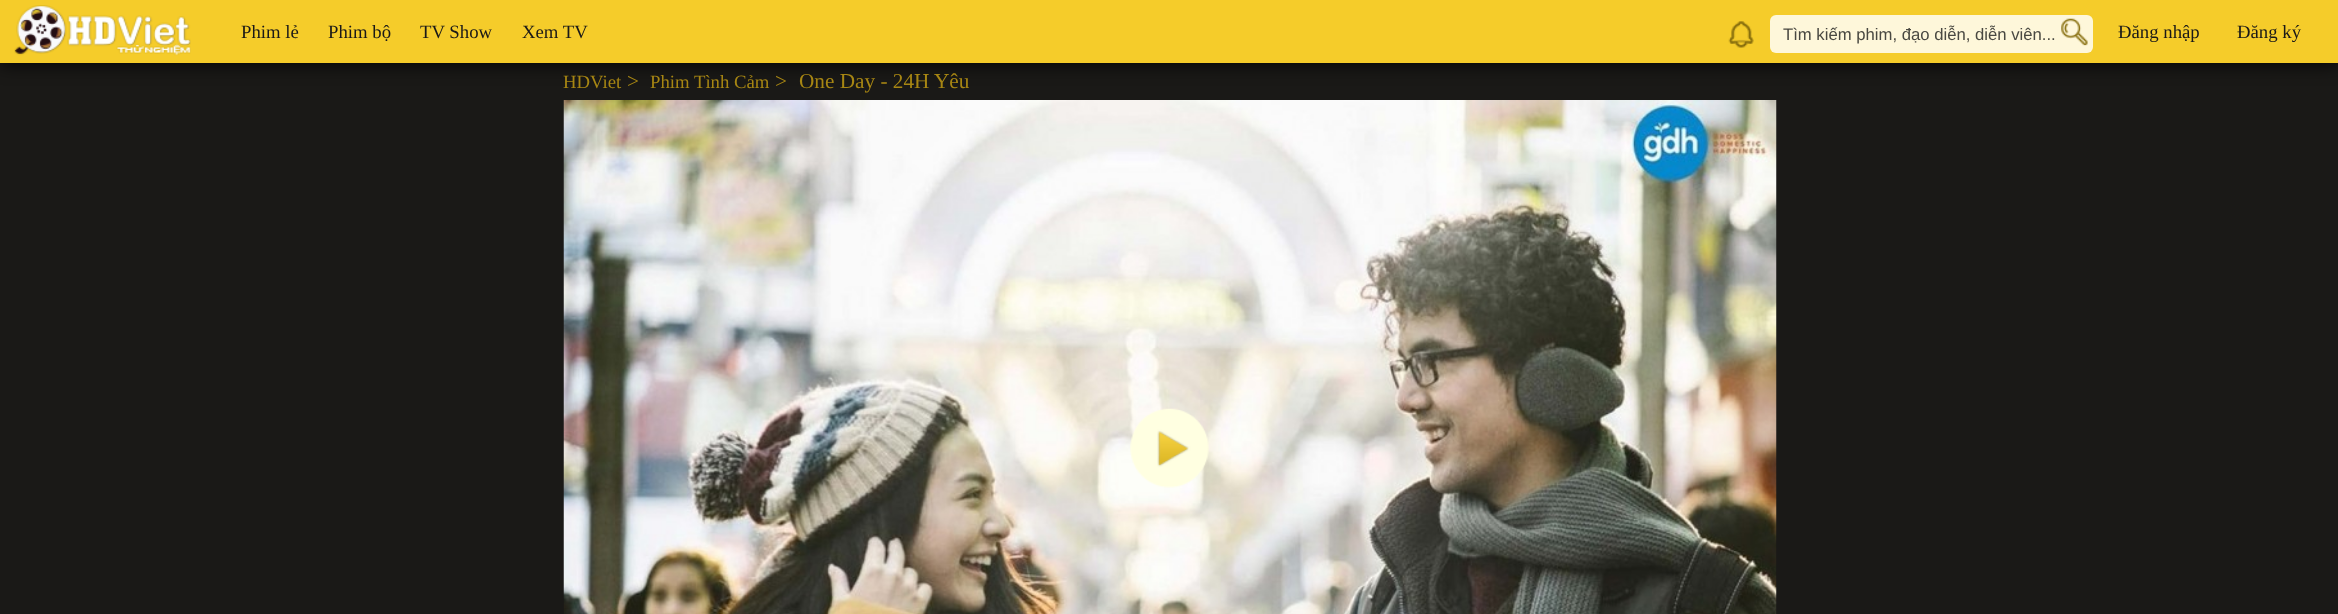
<!DOCTYPE html>
<meta charset="utf-8">
<style>body { margin: 0 } canvas { display: block }</style>
<canvas id="canvas" width="2338" height="614"></canvas>
<img id="img1" src="img_01.png" hidden>
<img id="img2" src="img_02.png" hidden>
<img id="img3" src="img_03.png" hidden>
<img id="img4" src="img_04.png" hidden>
<img id="img5" src="img_05.png" hidden>
<script>
window.onload = function () {
	const canvas = document.getElementById("canvas");
	const ctx = canvas.getContext("2d");
	ctx.miterLimit = 4;
	ctx.fontKerning = "normal";
	function txt(s, x, y) {
		ctx.fillText(s, x, y);
	}
	function fill(x, y, w, h) {
		ctx.fillRect(x, y, w, h);
	}
	function round(x, y, w, h, r) {
		ctx.beginPath();
		ctx.roundRect(x, y, w, h, r);
		ctx.fill();
	}
	function img(id, x, y, w, h) {
		ctx.drawImage(document.getElementById(id), x, y, w, h);
	}

	ctx.fillStyle = "#1A1917";
	fill(0, 0, 2338, 614);
	ctx.fillStyle = "#000000";
	ctx.filter = "blur(9.5px)";
	ctx.beginPath();
	ctx.rect(0, 0, 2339, 63);
	ctx.fill();
	ctx.filter = "none";
	ctx.fillStyle = "#F5CC2A";
	fill(0, 0, 2338, 63);
	img("img1", 14, 5, 177, 51);
	img("img2", 1728, 21, 26, 27);
	ctx.fillStyle = "#FEF7DA";
	round(1770, 15, 323, 38, 6);
	img("img3", 2061, 18, 27, 28);
	img("img4", 563, 100, 1214, 514);
	img("img5", 1130, 408, 79, 80);
	ctx.font = "18.75px Liberation Serif";
	ctx.fillStyle = "#1A1918";
	txt("Phim lẻ", 241, 38);
	txt("Phim bộ", 328, 38);
	txt("TV Show", 420, 38);
	txt("Xem TV", 522, 38);
	ctx.font = "16.7px Liberation Sans";
	ctx.fillStyle = "#494841";
	txt("Tìm kiếm phim, đạo diễn, diễn viên...", 1783, 40);
	ctx.font = "18.75px Liberation Serif";
	ctx.fillStyle = "#1A1918";
	txt("Đăng nhập", 2118, 38);
	txt("Đăng ký", 2237, 38);
	ctx.fillStyle = "#A78613";
	txt("HDViet", 563, 88);
	ctx.font = "21.25px Liberation Serif";
	txt(">", 627, 88);
	ctx.font = "18.75px Liberation Serif";
	txt("Phim Tình Cảm", 650, 88);
	ctx.font = "21.25px Liberation Serif";
	txt(">", 775, 88);
	txt("One Day - 24H Yêu", 799, 88);
};
</script>
